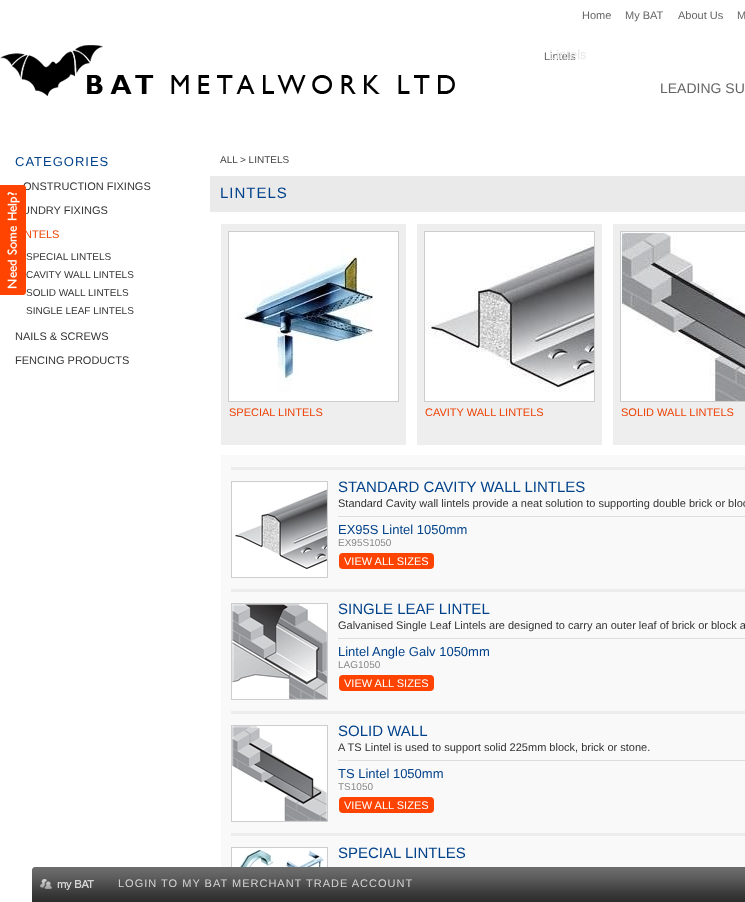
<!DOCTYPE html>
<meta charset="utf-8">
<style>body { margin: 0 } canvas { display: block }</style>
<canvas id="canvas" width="745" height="902"></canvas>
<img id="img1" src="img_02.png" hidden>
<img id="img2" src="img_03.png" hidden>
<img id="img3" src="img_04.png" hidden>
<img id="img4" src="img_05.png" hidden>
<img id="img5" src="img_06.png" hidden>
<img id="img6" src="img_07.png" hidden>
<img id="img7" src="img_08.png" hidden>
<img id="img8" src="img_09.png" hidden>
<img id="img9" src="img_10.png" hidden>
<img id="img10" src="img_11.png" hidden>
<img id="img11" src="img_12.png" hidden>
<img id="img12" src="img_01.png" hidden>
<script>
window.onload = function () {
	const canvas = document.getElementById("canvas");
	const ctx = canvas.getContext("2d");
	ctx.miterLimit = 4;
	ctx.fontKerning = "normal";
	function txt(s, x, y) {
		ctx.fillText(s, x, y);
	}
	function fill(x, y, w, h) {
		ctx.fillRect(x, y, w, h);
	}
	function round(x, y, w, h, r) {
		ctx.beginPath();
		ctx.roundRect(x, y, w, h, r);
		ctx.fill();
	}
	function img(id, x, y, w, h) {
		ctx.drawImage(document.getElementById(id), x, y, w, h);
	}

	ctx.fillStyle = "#FFFFFF";
	fill(0, 0, 745, 902);
	img("img1", 0, 45, 455, 51);
	ctx.fillStyle = "#EAEAEA";
	fill(210, 176, 535, 36);
	ctx.fillStyle = "#EEEEEE";
	fill(221, 224, 185, 221);
	ctx.strokeStyle = "#CDCDCD";
	ctx.strokeRect(228.5, 231.5, 170, 170);
	img("img2", 229, 232, 169, 169);
	fill(417, 224, 185, 221);
	ctx.strokeRect(424.5, 231.5, 170, 170);
	img("img3", 425, 232, 169, 169);
	fill(613, 224, 132, 221);
	ctx.strokeRect(620.5, 231.5, 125, 170);
	img("img4", 621, 232, 124, 169);
	ctx.fillStyle = "#F9F9F9";
	fill(221, 455, 524, 412);
	ctx.fillStyle = "#ECECEC";
	fill(231, 467, 514, 3);
	ctx.strokeRect(231.5, 481.5, 96, 96);
	img("img5", 232, 482, 95, 95);
	ctx.fillStyle = "#DDDDDD";
	fill(338, 516, 407, 1);
	ctx.fillStyle = "#FF4401";
	round(339, 553, 95, 16, 4);
	ctx.fillStyle = "#ECECEC";
	fill(231, 589, 514, 3);
	ctx.strokeRect(231.5, 603.5, 96, 96);
	img("img6", 232, 604, 95, 95);
	ctx.fillStyle = "#DDDDDD";
	fill(338, 638, 407, 1);
	ctx.fillStyle = "#FF4401";
	round(339, 675, 95, 16, 4);
	ctx.fillStyle = "#ECECEC";
	fill(231, 711, 514, 3);
	ctx.strokeRect(231.5, 725.5, 96, 96);
	img("img7", 232, 726, 95, 95);
	ctx.fillStyle = "#DDDDDD";
	fill(338, 760, 407, 1);
	ctx.fillStyle = "#FF4401";
	round(339, 797, 95, 16, 4);
	ctx.fillStyle = "#ECECEC";
	fill(231, 833, 514, 3);
	ctx.strokeRect(231.5, 847.5, 96, 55);
	img("img8", 232, 848, 95, 19);
	img("img9", 35, 867, 710, 35);
	img("img10", 32, 867, 3, 35);
	img("img11", 40, 879, 54, 11);
	ctx.font = "11px Liberation Sans";
	ctx.fillStyle = "#646464";
	txt("Home", 582, 19);
	txt("My BAT", 625, 19);
	txt("About Us", 678, 19);
	txt("M", 737, 19);
	txt("Lintels", 544, 60);
	ctx.font = "13px Liberation Sans";
	ctx.fillStyle = "#E7E7E7";
	txt("Lintels", 549, 59);
	ctx.font = "14px Liberation Sans";
	ctx.fillStyle = "#646464";
	txt("LEADING SU", 660, 93);
	ctx.letterSpacing = "1px";
	ctx.font = "13px Liberation Sans";
	ctx.fillStyle = "#02428A";
	txt("CATEGORIES", 15, 166);
	ctx.letterSpacing = "0px";
	ctx.font = "11px Liberation Sans";
	ctx.fillStyle = "#333333";
	txt("ONSTRUCTION FIXINGS", 23, 190);
	txt("UNDRY FIXINGS", 22, 214);
	ctx.fillStyle = "#ED4104";
	txt("NTELS", 24, 238);
	img("img12", 0, 185, 26, 110);
	ctx.font = "10px Liberation Sans";
	ctx.fillStyle = "#333333";
	txt("SPECIAL LINTELS", 26, 260);
	txt("CAVITY WALL LINTELS", 26, 278);
	txt("SOLID WALL LINTELS", 26, 296);
	txt("SINGLE LEAF LINTELS", 26, 314);
	ctx.font = "11px Liberation Sans";
	txt("NAILS & SCREWS", 15, 340);
	txt("FENCING PRODUCTS", 15, 364);
	ctx.font = "10px Liberation Sans";
	ctx.fillStyle = "#424242";
	txt("ALL", 220, 163);
	txt("> LINTELS", 240, 163);
	ctx.letterSpacing = "1px";
	ctx.font = "15px Liberation Sans";
	ctx.fillStyle = "#02428A";
	txt("LINTELS", 220, 198);
	ctx.letterSpacing = "0px";
	ctx.font = "11px Liberation Sans";
	ctx.fillStyle = "#ED4104";
	txt("SPECIAL LINTELS", 229, 416);
	txt("CAVITY WALL LINTELS", 425, 416);
	txt("SOLID WALL LINTELS", 621, 416);
	ctx.font = "15px Liberation Sans";
	ctx.fillStyle = "#02428A";
	txt("STANDARD CAVITY WALL LINTLES", 338, 492);
	ctx.font = "11px Liberation Sans";
	ctx.fillStyle = "#333333";
	txt("Standard Cavity wall lintels provide a neat solution to supporting double brick or bloc", 338, 507);
	ctx.font = "13px Liberation Sans";
	ctx.fillStyle = "#02428A";
	txt("EX95S Lintel 1050mm", 338, 534);
	ctx.font = "10px Liberation Sans";
	ctx.fillStyle = "#888888";
	txt("EX95S1050", 338, 546);
	ctx.font = "11px Liberation Sans";
	ctx.fillStyle = "#FFFFFF";
	txt("VIEW ALL SIZES", 344, 565);
	ctx.font = "15px Liberation Sans";
	ctx.fillStyle = "#02428A";
	txt("SINGLE LEAF LINTEL", 338, 614);
	ctx.font = "11px Liberation Sans";
	ctx.fillStyle = "#333333";
	txt("Galvanised Single Leaf Lintels are designed to carry an outer leaf of brick or block a", 338, 629);
	ctx.font = "13px Liberation Sans";
	ctx.fillStyle = "#02428A";
	txt("Lintel Angle Galv 1050mm", 338, 656);
	ctx.font = "10px Liberation Sans";
	ctx.fillStyle = "#888888";
	txt("LAG1050", 338, 668);
	ctx.font = "11px Liberation Sans";
	ctx.fillStyle = "#FFFFFF";
	txt("VIEW ALL SIZES", 344, 687);
	ctx.font = "15px Liberation Sans";
	ctx.fillStyle = "#02428A";
	txt("SOLID WALL", 338, 736);
	ctx.font = "11px Liberation Sans";
	ctx.fillStyle = "#333333";
	txt("A TS Lintel is used to support solid 225mm block, brick or stone.", 338, 751);
	ctx.font = "13px Liberation Sans";
	ctx.fillStyle = "#02428A";
	txt("TS Lintel 1050mm", 338, 778);
	ctx.font = "10px Liberation Sans";
	ctx.fillStyle = "#888888";
	txt("TS1050", 338, 790);
	ctx.font = "11px Liberation Sans";
	ctx.fillStyle = "#FFFFFF";
	txt("VIEW ALL SIZES", 344, 809);
	ctx.font = "15px Liberation Sans";
	ctx.fillStyle = "#02428A";
	txt("SPECIAL LINTLES", 338, 858);
	ctx.letterSpacing = "1px";
	ctx.font = "11px Liberation Sans";
	ctx.fillStyle = "#D5D5D5";
	txt("LOGIN TO MY BAT MERCHANT TRADE ACCOUNT", 118, 887);
};
</script>
